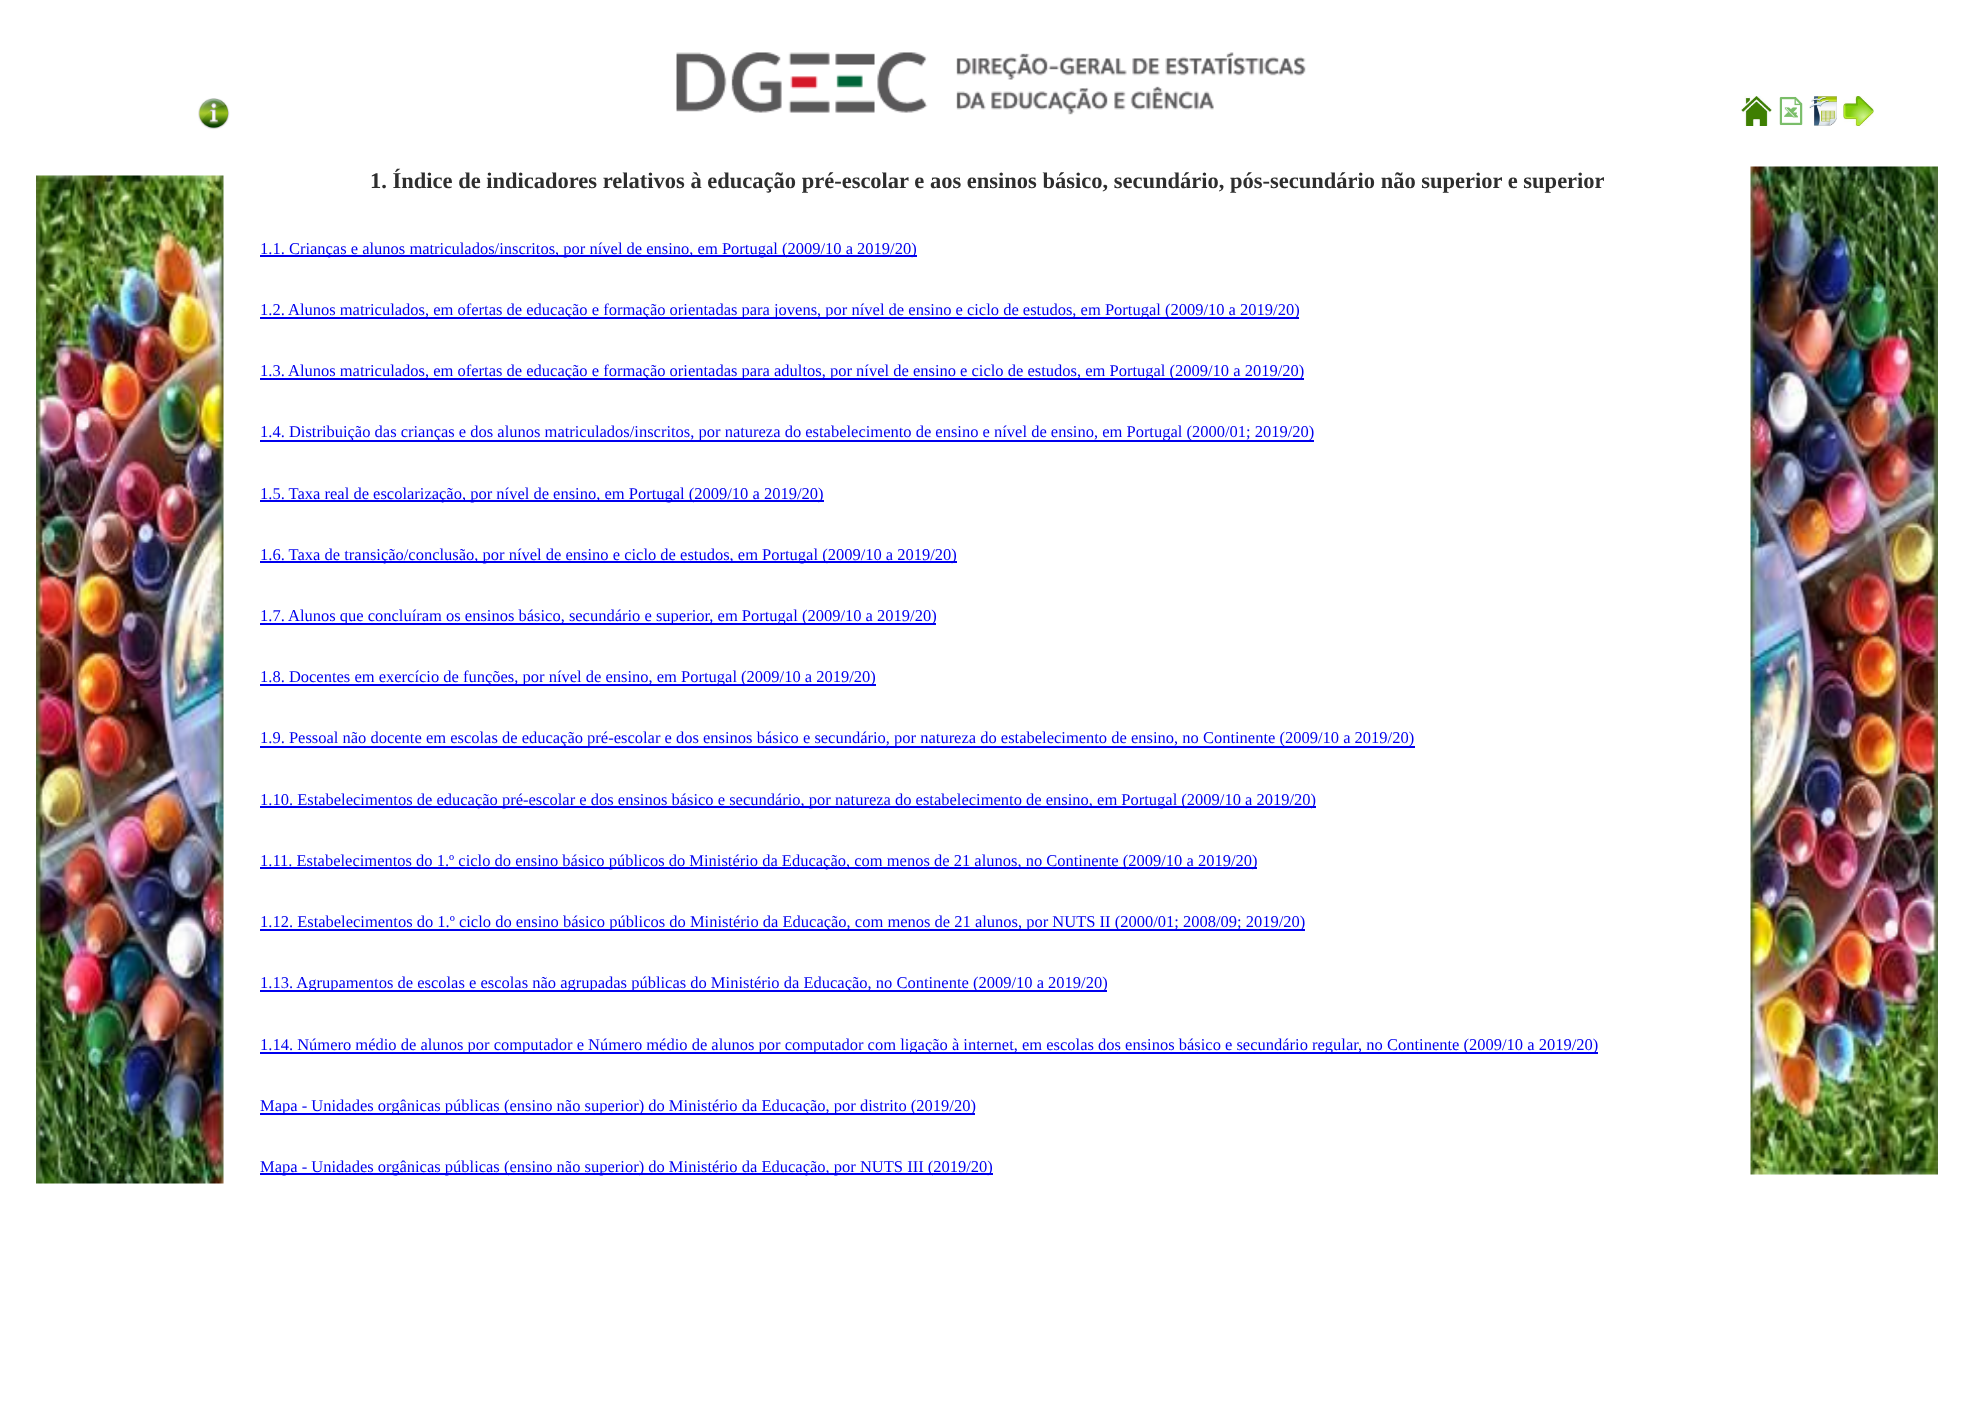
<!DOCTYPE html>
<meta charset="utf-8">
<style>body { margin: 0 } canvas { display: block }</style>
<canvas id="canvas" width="1973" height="1426"></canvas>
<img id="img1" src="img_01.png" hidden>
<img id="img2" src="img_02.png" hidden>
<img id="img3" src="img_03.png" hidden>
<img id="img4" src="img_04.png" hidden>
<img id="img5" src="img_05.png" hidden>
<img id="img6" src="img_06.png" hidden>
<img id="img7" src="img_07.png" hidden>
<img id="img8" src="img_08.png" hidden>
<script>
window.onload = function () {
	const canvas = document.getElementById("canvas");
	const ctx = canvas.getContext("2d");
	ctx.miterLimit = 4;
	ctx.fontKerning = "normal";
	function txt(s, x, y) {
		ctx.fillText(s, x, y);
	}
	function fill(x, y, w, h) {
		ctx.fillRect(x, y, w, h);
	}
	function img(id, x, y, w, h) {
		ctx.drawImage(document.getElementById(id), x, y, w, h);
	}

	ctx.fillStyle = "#FFFFFF";
	fill(0, 0, 1973, 1426);
	img("img1", 676, 52, 630, 63);
	img("img2", 198, 98, 32, 32);
	img("img3", 1741, 96, 31, 30);
	img("img4", 1779, 96, 24, 30);
	img("img5", 1809, 96, 28, 30);
	img("img6", 1843, 96, 31, 30);
	img("img7", 36, 175, 188, 1009);
	img("img8", 1750, 166, 188, 1009);
	ctx.fillStyle = "#0000EE";
	fill(260, 255, 657, 2);
	fill(260, 317, 1039, 2);
	fill(260, 378, 1044, 2);
	fill(260, 440, 1054, 2);
	fill(260, 500, 564, 2);
	fill(260, 561, 697, 2);
	fill(260, 623, 676, 2);
	fill(260, 684, 616, 2);
	fill(260, 746, 1155, 2);
	fill(260, 806, 1056, 2);
	fill(260, 867, 997, 2);
	fill(260, 929, 1045, 2);
	fill(260, 990, 847, 2);
	fill(260, 1052, 1338, 2);
	fill(260, 1113, 715, 2);
	fill(260, 1173, 733, 2);
	ctx.font = "bold 22.5px Liberation Serif";
	ctx.fillStyle = "#2E2E2E";
	txt("1. Índice de indicadores relativos à educação pré-escolar e aos ensinos básico, secundário, pós-secundário não superior e superior", 370, 188);
	ctx.font = "16.5px Liberation Serif";
	ctx.fillStyle = "#0000EE";
	txt("1.1. Crianças e alunos matriculados/inscritos, por nível de ensino, em Portugal (2009/10 a 2019/20)", 260, 254);
	txt("1.2. Alunos matriculados, em ofertas de educação e formação orientadas para jovens, por nível de ensino e ciclo de estudos, em Portugal (2009/10 a 2019/20)", 260, 315);
	txt("1.3. Alunos matriculados, em ofertas de educação e formação orientadas para adultos, por nível de ensino e ciclo de estudos, em Portugal (2009/10 a 2019/20)", 260, 376);
	txt("1.4. Distribuição das crianças e dos alunos matriculados/inscritos, por natureza do estabelecimento de ensino e nível de ensino, em Portugal (2000/01; 2019/20)", 260, 437);
	txt("1.5. Taxa real de escolarização, por nível de ensino, em Portugal (2009/10 a 2019/20)", 260, 499);
	txt("1.6. Taxa de transição/conclusão, por nível de ensino e ciclo de estudos, em Portugal (2009/10 a 2019/20)", 260, 560);
	txt("1.7. Alunos que concluíram os ensinos básico, secundário e superior, em Portugal (2009/10 a 2019/20)", 260, 621);
	txt("1.8. Docentes em exercício de funções, por nível de ensino, em Portugal (2009/10 a 2019/20)", 260, 682);
	txt("1.9. Pessoal não docente em escolas de educação pré-escolar e dos ensinos básico e secundário, por natureza do estabelecimento de ensino, no Continente (2009/10 a 2019/20)", 260, 743);
	txt("1.10. Estabelecimentos de educação pré-escolar e dos ensinos básico e secundário, por natureza do estabelecimento de ensino, em Portugal (2009/10 a 2019/20)", 260, 805);
	txt("1.11. Estabelecimentos do 1.º ciclo do ensino básico públicos do Ministério da Educação, com menos de 21 alunos, no Continente (2009/10 a 2019/20)", 260, 866);
	txt("1.12. Estabelecimentos do 1.º ciclo do ensino básico públicos do Ministério da Educação, com menos de 21 alunos, por NUTS II (2000/01; 2008/09; 2019/20)", 260, 927);
	txt("1.13. Agrupamentos de escolas e escolas não agrupadas públicas do Ministério da Educação, no Continente (2009/10 a 2019/20)", 260, 988);
	txt("1.14. Número médio de alunos por computador e Número médio de alunos por computador com ligação à internet, em escolas dos ensinos básico e secundário regular, no Continente (2009/10 a 2019/20)", 260, 1050);
	txt("Mapa - Unidades orgânicas públicas (ensino não superior) do Ministério da Educação, por distrito (2019/20)", 260, 1111);
	txt("Mapa - Unidades orgânicas públicas (ensino não superior) do Ministério da Educação, por NUTS III (2019/20)", 260, 1172);
};
</script>
